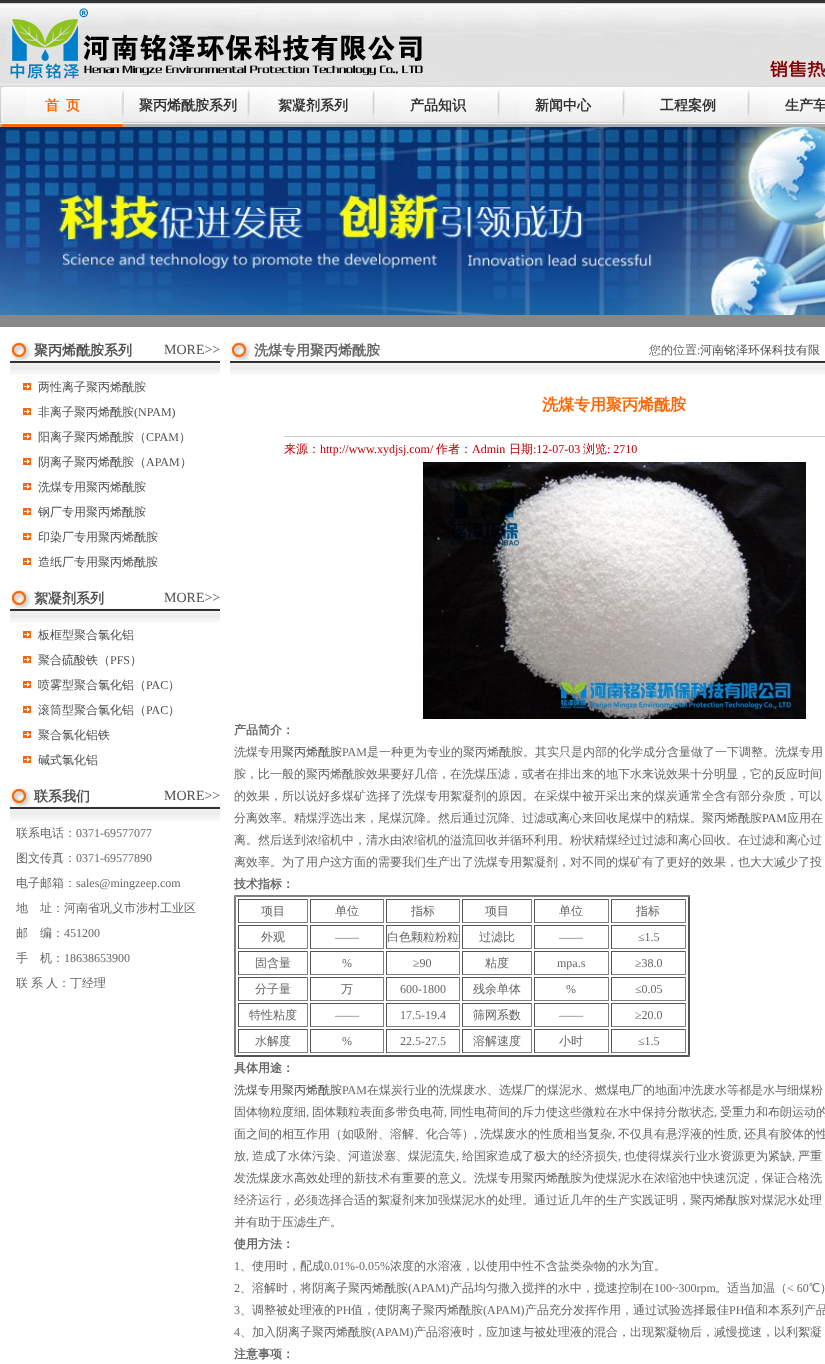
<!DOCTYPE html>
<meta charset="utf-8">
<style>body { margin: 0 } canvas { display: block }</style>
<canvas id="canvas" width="825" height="1364"></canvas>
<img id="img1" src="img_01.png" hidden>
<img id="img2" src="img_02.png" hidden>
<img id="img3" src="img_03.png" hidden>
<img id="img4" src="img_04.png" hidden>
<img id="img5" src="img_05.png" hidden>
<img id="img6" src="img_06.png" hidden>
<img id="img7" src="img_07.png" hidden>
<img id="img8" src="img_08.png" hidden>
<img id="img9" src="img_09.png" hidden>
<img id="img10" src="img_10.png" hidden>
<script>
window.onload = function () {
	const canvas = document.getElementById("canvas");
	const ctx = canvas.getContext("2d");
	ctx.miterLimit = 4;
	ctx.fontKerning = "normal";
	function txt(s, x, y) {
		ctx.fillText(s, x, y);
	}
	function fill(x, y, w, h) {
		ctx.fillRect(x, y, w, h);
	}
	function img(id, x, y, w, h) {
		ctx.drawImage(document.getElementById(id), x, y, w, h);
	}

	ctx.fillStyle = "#FFFFFF";
	fill(0, 0, 825, 1364);
	img("img1", 0, 0, 825, 85);
	img("img2", 0, 85, 125, 42);
	img("img3", 125, 85, 125, 42);
	img("img3", 250, 85, 125, 42);
	img("img3", 375, 85, 125, 42);
	img("img3", 500, 85, 125, 42);
	img("img3", 625, 85, 125, 42);
	img("img4", 750, 85, 75, 42);
	img("img5", 0, 127, 825, 188);
	ctx.fillStyle = "#888888";
	fill(0, 315, 825, 12);
	img("img6", 10, 342, 21, 18);
	img("img7", 10, 360, 210, 15);
	img("img8", 20, 383, 15, 8);
	img("img8", 20, 408, 15, 8);
	img("img8", 20, 433, 15, 8);
	img("img8", 20, 458, 15, 8);
	img("img8", 20, 483, 15, 8);
	img("img8", 20, 508, 15, 8);
	img("img8", 20, 533, 15, 8);
	img("img8", 20, 558, 15, 8);
	img("img6", 10, 590, 21, 18);
	img("img7", 10, 608, 210, 15);
	img("img8", 20, 631, 15, 8);
	img("img8", 20, 656, 15, 8);
	img("img8", 20, 681, 15, 8);
	img("img8", 20, 706, 15, 8);
	img("img8", 20, 731, 15, 8);
	img("img8", 20, 756, 15, 8);
	img("img6", 10, 788, 21, 18);
	img("img7", 10, 806, 210, 15);
	img("img6", 230, 342, 21, 18);
	img("img9", 230, 360, 595, 15);
	ctx.fillStyle = "#CCCCCC";
	fill(284, 436, 541, 1);
	img("img10", 423, 462, 383, 257);
	ctx.fillStyle = "#808080";
	ctx.beginPath();
	ctx.moveTo(234, 895);
	ctx.lineTo(690, 895);
	ctx.lineTo(688, 897);
	ctx.lineTo(236, 897);
	ctx.closePath();
	ctx.fill();
	ctx.fillStyle = "#555555";
	ctx.beginPath();
	ctx.moveTo(690, 895);
	ctx.lineTo(690, 1057);
	ctx.lineTo(688, 1055);
	ctx.lineTo(688, 897);
	ctx.closePath();
	ctx.fill();
	ctx.beginPath();
	ctx.moveTo(690, 1057);
	ctx.lineTo(234, 1057);
	ctx.lineTo(236, 1055);
	ctx.lineTo(688, 1055);
	ctx.closePath();
	ctx.fill();
	ctx.fillStyle = "#808080";
	ctx.beginPath();
	ctx.moveTo(234, 1057);
	ctx.lineTo(234, 895);
	ctx.lineTo(236, 897);
	ctx.lineTo(236, 1055);
	ctx.closePath();
	ctx.fill();
	ctx.fillStyle = "#555555";
	fill(238, 899, 70, 1);
	ctx.fillStyle = "#808080";
	fill(307, 899, 1, 24);
	fill(238, 922, 70, 1);
	ctx.fillStyle = "#555555";
	fill(238, 899, 1, 24);
	fill(310, 899, 74, 1);
	ctx.fillStyle = "#808080";
	fill(383, 899, 1, 24);
	fill(310, 922, 74, 1);
	ctx.fillStyle = "#555555";
	fill(310, 899, 1, 24);
	fill(386, 899, 74, 1);
	ctx.fillStyle = "#808080";
	fill(459, 899, 1, 24);
	fill(386, 922, 74, 1);
	ctx.fillStyle = "#555555";
	fill(386, 899, 1, 24);
	fill(462, 899, 70, 1);
	ctx.fillStyle = "#808080";
	fill(531, 899, 1, 24);
	fill(462, 922, 70, 1);
	ctx.fillStyle = "#555555";
	fill(462, 899, 1, 24);
	fill(534, 899, 75, 1);
	ctx.fillStyle = "#808080";
	fill(608, 899, 1, 24);
	fill(534, 922, 75, 1);
	ctx.fillStyle = "#555555";
	fill(534, 899, 1, 24);
	fill(611, 899, 75, 1);
	ctx.fillStyle = "#808080";
	fill(685, 899, 1, 24);
	fill(611, 922, 75, 1);
	ctx.fillStyle = "#555555";
	fill(611, 899, 1, 24);
	fill(238, 925, 70, 1);
	ctx.fillStyle = "#808080";
	fill(307, 925, 1, 24);
	fill(238, 948, 70, 1);
	ctx.fillStyle = "#555555";
	fill(238, 925, 1, 24);
	fill(310, 925, 74, 1);
	ctx.fillStyle = "#808080";
	fill(383, 925, 1, 24);
	fill(310, 948, 74, 1);
	ctx.fillStyle = "#555555";
	fill(310, 925, 1, 24);
	fill(386, 925, 74, 1);
	ctx.fillStyle = "#808080";
	fill(459, 925, 1, 24);
	fill(386, 948, 74, 1);
	ctx.fillStyle = "#555555";
	fill(386, 925, 1, 24);
	fill(462, 925, 70, 1);
	ctx.fillStyle = "#808080";
	fill(531, 925, 1, 24);
	fill(462, 948, 70, 1);
	ctx.fillStyle = "#555555";
	fill(462, 925, 1, 24);
	fill(534, 925, 75, 1);
	ctx.fillStyle = "#808080";
	fill(608, 925, 1, 24);
	fill(534, 948, 75, 1);
	ctx.fillStyle = "#555555";
	fill(534, 925, 1, 24);
	fill(611, 925, 75, 1);
	ctx.fillStyle = "#808080";
	fill(685, 925, 1, 24);
	fill(611, 948, 75, 1);
	ctx.fillStyle = "#555555";
	fill(611, 925, 1, 24);
	fill(238, 951, 70, 1);
	ctx.fillStyle = "#808080";
	fill(307, 951, 1, 24);
	fill(238, 974, 70, 1);
	ctx.fillStyle = "#555555";
	fill(238, 951, 1, 24);
	fill(310, 951, 74, 1);
	ctx.fillStyle = "#808080";
	fill(383, 951, 1, 24);
	fill(310, 974, 74, 1);
	ctx.fillStyle = "#555555";
	fill(310, 951, 1, 24);
	fill(386, 951, 74, 1);
	ctx.fillStyle = "#808080";
	fill(459, 951, 1, 24);
	fill(386, 974, 74, 1);
	ctx.fillStyle = "#555555";
	fill(386, 951, 1, 24);
	fill(462, 951, 70, 1);
	ctx.fillStyle = "#808080";
	fill(531, 951, 1, 24);
	fill(462, 974, 70, 1);
	ctx.fillStyle = "#555555";
	fill(462, 951, 1, 24);
	fill(534, 951, 75, 1);
	ctx.fillStyle = "#808080";
	fill(608, 951, 1, 24);
	fill(534, 974, 75, 1);
	ctx.fillStyle = "#555555";
	fill(534, 951, 1, 24);
	fill(611, 951, 75, 1);
	ctx.fillStyle = "#808080";
	fill(685, 951, 1, 24);
	fill(611, 974, 75, 1);
	ctx.fillStyle = "#555555";
	fill(611, 951, 1, 24);
	fill(238, 977, 70, 1);
	ctx.fillStyle = "#808080";
	fill(307, 977, 1, 24);
	fill(238, 1000, 70, 1);
	ctx.fillStyle = "#555555";
	fill(238, 977, 1, 24);
	fill(310, 977, 74, 1);
	ctx.fillStyle = "#808080";
	fill(383, 977, 1, 24);
	fill(310, 1000, 74, 1);
	ctx.fillStyle = "#555555";
	fill(310, 977, 1, 24);
	fill(386, 977, 74, 1);
	ctx.fillStyle = "#808080";
	fill(459, 977, 1, 24);
	fill(386, 1000, 74, 1);
	ctx.fillStyle = "#555555";
	fill(386, 977, 1, 24);
	fill(462, 977, 70, 1);
	ctx.fillStyle = "#808080";
	fill(531, 977, 1, 24);
	fill(462, 1000, 70, 1);
	ctx.fillStyle = "#555555";
	fill(462, 977, 1, 24);
	fill(534, 977, 75, 1);
	ctx.fillStyle = "#808080";
	fill(608, 977, 1, 24);
	fill(534, 1000, 75, 1);
	ctx.fillStyle = "#555555";
	fill(534, 977, 1, 24);
	fill(611, 977, 75, 1);
	ctx.fillStyle = "#808080";
	fill(685, 977, 1, 24);
	fill(611, 1000, 75, 1);
	ctx.fillStyle = "#555555";
	fill(611, 977, 1, 24);
	fill(238, 1003, 70, 1);
	ctx.fillStyle = "#808080";
	fill(307, 1003, 1, 24);
	fill(238, 1026, 70, 1);
	ctx.fillStyle = "#555555";
	fill(238, 1003, 1, 24);
	fill(310, 1003, 74, 1);
	ctx.fillStyle = "#808080";
	fill(383, 1003, 1, 24);
	fill(310, 1026, 74, 1);
	ctx.fillStyle = "#555555";
	fill(310, 1003, 1, 24);
	fill(386, 1003, 74, 1);
	ctx.fillStyle = "#808080";
	fill(459, 1003, 1, 24);
	fill(386, 1026, 74, 1);
	ctx.fillStyle = "#555555";
	fill(386, 1003, 1, 24);
	fill(462, 1003, 70, 1);
	ctx.fillStyle = "#808080";
	fill(531, 1003, 1, 24);
	fill(462, 1026, 70, 1);
	ctx.fillStyle = "#555555";
	fill(462, 1003, 1, 24);
	fill(534, 1003, 75, 1);
	ctx.fillStyle = "#808080";
	fill(608, 1003, 1, 24);
	fill(534, 1026, 75, 1);
	ctx.fillStyle = "#555555";
	fill(534, 1003, 1, 24);
	fill(611, 1003, 75, 1);
	ctx.fillStyle = "#808080";
	fill(685, 1003, 1, 24);
	fill(611, 1026, 75, 1);
	ctx.fillStyle = "#555555";
	fill(611, 1003, 1, 24);
	fill(238, 1029, 70, 1);
	ctx.fillStyle = "#808080";
	fill(307, 1029, 1, 24);
	fill(238, 1052, 70, 1);
	ctx.fillStyle = "#555555";
	fill(238, 1029, 1, 24);
	fill(310, 1029, 74, 1);
	ctx.fillStyle = "#808080";
	fill(383, 1029, 1, 24);
	fill(310, 1052, 74, 1);
	ctx.fillStyle = "#555555";
	fill(310, 1029, 1, 24);
	fill(386, 1029, 74, 1);
	ctx.fillStyle = "#808080";
	fill(459, 1029, 1, 24);
	fill(386, 1052, 74, 1);
	ctx.fillStyle = "#555555";
	fill(386, 1029, 1, 24);
	fill(462, 1029, 70, 1);
	ctx.fillStyle = "#808080";
	fill(531, 1029, 1, 24);
	fill(462, 1052, 70, 1);
	ctx.fillStyle = "#555555";
	fill(462, 1029, 1, 24);
	fill(534, 1029, 75, 1);
	ctx.fillStyle = "#808080";
	fill(608, 1029, 1, 24);
	fill(534, 1052, 75, 1);
	ctx.fillStyle = "#555555";
	fill(534, 1029, 1, 24);
	fill(611, 1029, 75, 1);
	ctx.fillStyle = "#808080";
	fill(685, 1029, 1, 24);
	fill(611, 1052, 75, 1);
	ctx.fillStyle = "#555555";
	fill(611, 1029, 1, 24);
	ctx.font = "bold 14px WenQuanYi Zen Hei";
	ctx.fillStyle = "#FE6600";
	txt("首", 45, 110);
	txt("页", 66, 110);
	ctx.fillStyle = "#333333";
	txt("聚丙烯酰胺系列", 139, 110);
	txt("絮凝剂系列", 278, 110);
	txt("产品知识", 410, 110);
	txt("新闻中心", 535, 110);
	txt("工程案例", 660, 110);
	txt("生产车", 785, 110);
	ctx.fillStyle = "#515151";
	txt("聚丙烯酰胺系列", 34, 355);
	ctx.font = "14px Liberation Serif";
	txt("MORE>>", 164, 354);
	ctx.font = "500 12px WenQuanYi Zen Hei";
	txt("两性离子聚丙烯酰胺", 38, 391);
	txt("非离子聚丙烯酰胺", 38, 416);
	ctx.font = "12px Liberation Serif";
	txt("(NPAM)", 134, 416);
	ctx.font = "500 12px WenQuanYi Zen Hei";
	txt("阳离子聚丙烯酰胺（", 38, 441);
	ctx.font = "12px Liberation Serif";
	txt("CPAM", 146, 441);
	ctx.font = "500 12px WenQuanYi Zen Hei";
	txt("）", 179, 441);
	txt("阴离子聚丙烯酰胺（", 38, 466);
	ctx.font = "12px Liberation Serif";
	txt("APAM", 146, 466);
	ctx.font = "500 12px WenQuanYi Zen Hei";
	txt("）", 180, 466);
	txt("洗煤专用聚丙烯酰胺", 38, 491);
	txt("钢厂专用聚丙烯酰胺", 38, 516);
	txt("印染厂专用聚丙烯酰胺", 38, 541);
	txt("造纸厂专用聚丙烯酰胺", 38, 566);
	ctx.font = "bold 14px WenQuanYi Zen Hei";
	txt("絮凝剂系列", 34, 603);
	ctx.font = "14px Liberation Serif";
	txt("MORE>>", 164, 602);
	ctx.font = "500 12px WenQuanYi Zen Hei";
	txt("板框型聚合氯化铝", 38, 639);
	txt("聚合硫酸铁（", 38, 664);
	ctx.font = "12px Liberation Serif";
	txt("PFS", 110, 664);
	ctx.font = "500 12px WenQuanYi Zen Hei";
	txt("）", 130, 664);
	txt("喷雾型聚合氯化铝（", 38, 689);
	ctx.font = "12px Liberation Serif";
	txt("PAC", 146, 689);
	ctx.font = "500 12px WenQuanYi Zen Hei";
	txt("）", 168, 689);
	txt("滚筒型聚合氯化铝（", 38, 714);
	ctx.font = "12px Liberation Serif";
	txt("PAC", 146, 714);
	ctx.font = "500 12px WenQuanYi Zen Hei";
	txt("）", 168, 714);
	txt("聚合氯化铝铁", 38, 739);
	txt("碱式氯化铝", 38, 764);
	ctx.font = "bold 14px WenQuanYi Zen Hei";
	txt("联系我们", 34, 801);
	ctx.font = "14px Liberation Serif";
	txt("MORE>>", 164, 800);
	ctx.font = "500 12px WenQuanYi Zen Hei";
	ctx.fillStyle = "#666666";
	txt("联系电话：", 16, 837);
	ctx.font = "12px Liberation Serif";
	txt("0371-69577077", 76, 837);
	ctx.font = "500 12px WenQuanYi Zen Hei";
	txt("图文传真：", 16, 862);
	ctx.font = "12px Liberation Serif";
	txt("0371-69577890", 76, 862);
	ctx.font = "500 12px WenQuanYi Zen Hei";
	txt("电子邮箱：", 16, 887);
	ctx.font = "12px Liberation Serif";
	txt("sales@mingzeep.com", 76, 887);
	ctx.font = "500 12px WenQuanYi Zen Hei";
	txt("地", 16, 912);
	txt("址：河南省巩义市涉村工业区", 40, 912);
	txt("邮", 16, 937);
	txt("编：", 40, 937);
	ctx.font = "12px Liberation Serif";
	txt("451200", 64, 937);
	ctx.font = "500 12px WenQuanYi Zen Hei";
	txt("手", 16, 962);
	txt("机：", 40, 962);
	ctx.font = "12px Liberation Serif";
	txt("18638653900", 64, 962);
	ctx.font = "500 12px WenQuanYi Zen Hei";
	txt("联", 16, 987);
	txt("系", 31, 987);
	txt("人：丁经理", 46, 987);
	ctx.font = "bold 14px WenQuanYi Zen Hei";
	txt("洗煤专用聚丙烯酰胺", 254, 355);
	ctx.font = "500 12px WenQuanYi Zen Hei";
	txt("您的位置", 649, 354);
	ctx.font = "12px Liberation Serif";
	txt(":", 697, 354);
	ctx.font = "500 12px WenQuanYi Zen Hei";
	ctx.fillStyle = "#515151";
	txt("河南铭泽环保科技有限", 700, 354);
	ctx.font = "bold 16px WenQuanYi Zen Hei";
	ctx.fillStyle = "#FE6600";
	txt("洗煤专用聚丙烯酰胺", 542, 410);
	ctx.font = "500 12px WenQuanYi Zen Hei";
	ctx.fillStyle = "#BB0000";
	txt("来源：", 284, 453);
	ctx.font = "12px Liberation Serif";
	txt("http://www.xydjsj.com/", 320, 453);
	ctx.font = "500 12px WenQuanYi Zen Hei";
	txt("作者：", 436, 453);
	ctx.font = "12px Liberation Serif";
	txt("Admin", 472, 453);
	ctx.font = "500 12px WenQuanYi Zen Hei";
	txt("日期", 509, 453);
	ctx.font = "12px Liberation Serif";
	txt(":12-07-03", 533, 453);
	ctx.font = "500 12px WenQuanYi Zen Hei";
	txt("浏览", 583, 453);
	ctx.font = "12px Liberation Serif";
	txt(": 2710", 607, 453);
	ctx.font = "bold 12px WenQuanYi Zen Hei";
	ctx.fillStyle = "#666666";
	txt("产品简介：", 234, 734);
	ctx.font = "500 12px WenQuanYi Zen Hei";
	txt("洗煤专用", 234, 756);
	ctx.fillStyle = "#515151";
	txt("聚丙烯酰胺", 282, 756);
	ctx.font = "12px Liberation Serif";
	ctx.fillStyle = "#666666";
	txt("PAM", 342, 756);
	ctx.font = "500 12px WenQuanYi Zen Hei";
	txt("是一种更为专业的聚丙烯酰胺。其实只是内部的化学成分含量做了一下调整。洗煤专用", 367, 756);
	txt("胺，比一般的聚丙烯酰胺效果要好几倍，在洗煤压滤，或者在排出来的地下水来说效果十分明显，它的反应时间", 234, 778);
	txt("的效果，所以说好多煤矿选择了洗煤专用絮凝剂的原因。在采煤中被开采出来的煤炭通常全含有部分杂质，可以", 234, 800);
	txt("分离效率。精煤浮选出来，尾煤沉降。然后通过沉降、过滤或离心来回收尾煤中的精煤。聚丙烯酰胺", 234, 822);
	ctx.font = "12px Liberation Serif";
	ctx.fillStyle = "#515151";
	txt("PAM", 762, 822);
	ctx.font = "500 12px WenQuanYi Zen Hei";
	ctx.fillStyle = "#666666";
	txt("应用在", 787, 822);
	txt("离。然后送到浓缩机中，清水由浓缩机的溢流回收并循环利用。粉状精煤经过过滤和离心回收。在过滤和离心过", 234, 844);
	txt("离效率。为了用户这方面的需要我们生产出了洗煤专用絮凝剂，对不同的煤矿有了更好的效果，也大大减少了投", 234, 866);
	ctx.font = "bold 12px WenQuanYi Zen Hei";
	txt("技术指标：", 234, 888);
	ctx.font = "500 12px WenQuanYi Zen Hei";
	txt("项目", 261, 915);
	txt("单位", 335, 915);
	txt("指标", 411, 915);
	txt("项目", 485, 915);
	txt("单位", 559, 915);
	txt("指标", 636, 915);
	txt("外观", 261, 941);
	ctx.font = "12px Liberation Serif";
	txt("——", 335, 941);
	ctx.font = "500 12px WenQuanYi Zen Hei";
	txt("白色颗粒粉粒", 387, 941);
	txt("过滤比", 479, 941);
	ctx.font = "12px Liberation Serif";
	txt("——", 559, 941);
	txt("≤1.5", 638, 941);
	ctx.font = "500 12px WenQuanYi Zen Hei";
	txt("固含量", 255, 967);
	ctx.font = "12px Liberation Serif";
	txt("%", 342, 967);
	txt("≥90", 413, 967);
	ctx.font = "500 12px WenQuanYi Zen Hei";
	txt("粘度", 485, 967);
	ctx.font = "12px Liberation Serif";
	txt("mpa.s", 557, 967);
	txt("≥38.0", 635, 967);
	ctx.font = "500 12px WenQuanYi Zen Hei";
	txt("分子量", 255, 993);
	txt("万", 341, 993);
	ctx.font = "12px Liberation Serif";
	txt("600-1800", 400, 993);
	ctx.font = "500 12px WenQuanYi Zen Hei";
	txt("残余单体", 473, 993);
	ctx.font = "12px Liberation Serif";
	txt("%", 566, 993);
	txt("≤0.05", 635, 993);
	ctx.font = "500 12px WenQuanYi Zen Hei";
	txt("特性粘度", 249, 1019);
	ctx.font = "12px Liberation Serif";
	txt("——", 335, 1019);
	txt("17.5-19.4", 400, 1019);
	ctx.font = "500 12px WenQuanYi Zen Hei";
	txt("筛网系数", 473, 1019);
	ctx.font = "12px Liberation Serif";
	txt("——", 559, 1019);
	txt("≥20.0", 635, 1019);
	ctx.font = "500 12px WenQuanYi Zen Hei";
	txt("水解度", 255, 1045);
	ctx.font = "12px Liberation Serif";
	txt("%", 342, 1045);
	txt("22.5-27.5", 400, 1045);
	ctx.font = "500 12px WenQuanYi Zen Hei";
	txt("溶解速度", 473, 1045);
	txt("小时", 559, 1045);
	ctx.font = "12px Liberation Serif";
	txt("≤1.5", 638, 1045);
	ctx.font = "bold 12px WenQuanYi Zen Hei";
	txt("具体用途：", 234, 1072);
	ctx.font = "500 12px WenQuanYi Zen Hei";
	ctx.fillStyle = "#515151";
	txt("洗煤专用聚丙烯酰胺", 234, 1094);
	ctx.font = "12px Liberation Serif";
	ctx.fillStyle = "#666666";
	txt("PAM", 342, 1094);
	ctx.font = "500 12px WenQuanYi Zen Hei";
	txt("在煤炭行业的洗煤废水、选煤厂的煤泥水、燃煤电厂的地面冲洗废水等都是水与细煤粉", 367, 1094);
	txt("固体物粒度细", 234, 1116);
	ctx.font = "12px Liberation Serif";
	txt(",", 306, 1116);
	ctx.font = "500 12px WenQuanYi Zen Hei";
	txt("固体颗粒表面多带负电荷", 312, 1116);
	ctx.font = "12px Liberation Serif";
	txt(",", 444, 1116);
	ctx.font = "500 12px WenQuanYi Zen Hei";
	txt("同性电荷间的斥力使这些微粒在水中保持分散状态", 450, 1116);
	ctx.font = "12px Liberation Serif";
	txt(",", 714, 1116);
	ctx.font = "500 12px WenQuanYi Zen Hei";
	txt("受重力和布朗运动的", 720, 1116);
	txt("面之间的相互作用（如吸附、溶解、化合等）", 234, 1138);
	ctx.font = "12px Liberation Serif";
	txt(",", 474, 1138);
	ctx.font = "500 12px WenQuanYi Zen Hei";
	txt("洗煤废水的性质相当复杂", 480, 1138);
	ctx.font = "12px Liberation Serif";
	txt(",", 612, 1138);
	ctx.font = "500 12px WenQuanYi Zen Hei";
	txt("不仅具有悬浮液的性质", 618, 1138);
	ctx.font = "12px Liberation Serif";
	txt(",", 738, 1138);
	ctx.font = "500 12px WenQuanYi Zen Hei";
	txt("还具有胶体的性", 744, 1138);
	txt("放", 234, 1160);
	ctx.font = "12px Liberation Serif";
	txt(",", 246, 1160);
	ctx.font = "500 12px WenQuanYi Zen Hei";
	txt("造成了水体污染、河道淤塞、煤泥流失", 252, 1160);
	ctx.font = "12px Liberation Serif";
	txt(",", 456, 1160);
	ctx.font = "500 12px WenQuanYi Zen Hei";
	txt("给国家造成了极大的经济损失", 462, 1160);
	ctx.font = "12px Liberation Serif";
	txt(",", 618, 1160);
	ctx.font = "500 12px WenQuanYi Zen Hei";
	txt("也使得煤炭行业水资源更为紧缺", 624, 1160);
	ctx.font = "12px Liberation Serif";
	txt(",", 792, 1160);
	ctx.font = "500 12px WenQuanYi Zen Hei";
	txt("严重", 798, 1160);
	txt("发洗煤废水高效处理的新技术有重要的意义。洗煤专用聚丙烯酰胺为使煤泥水在浓缩池中快速沉淀，保证合格洗", 234, 1182);
	txt("经济运行，必须选择合适的絮凝剂来加强煤泥水的处理。通过近几年的生产实践证明，聚丙烯酞胺对煤泥水处理", 234, 1204);
	txt("并有助于压滤生产。", 234, 1226);
	ctx.font = "bold 12px WenQuanYi Zen Hei";
	txt("使用方法：", 234, 1248);
	ctx.font = "12px Liberation Serif";
	txt("1", 234, 1270);
	ctx.font = "500 12px WenQuanYi Zen Hei";
	txt("、使用时，配成", 240, 1270);
	ctx.font = "12px Liberation Serif";
	txt("0.01%-0.05%", 324, 1270);
	ctx.font = "500 12px WenQuanYi Zen Hei";
	txt("浓度的水溶液，以使用中性不含盐类杂物的水为宜。", 390, 1270);
	ctx.font = "12px Liberation Serif";
	txt("2", 234, 1292);
	ctx.font = "500 12px WenQuanYi Zen Hei";
	txt("、溶解时，将阴离子聚丙烯酰胺", 240, 1292);
	ctx.font = "12px Liberation Serif";
	txt("(APAM)", 408, 1292);
	ctx.font = "500 12px WenQuanYi Zen Hei";
	txt("产品均匀撒入搅拌的水中，搅速控制在", 450, 1292);
	ctx.font = "12px Liberation Serif";
	txt("100~300rpm", 654, 1292);
	ctx.font = "500 12px WenQuanYi Zen Hei";
	txt("。适当加温（", 715, 1292);
	ctx.font = "12px Liberation Serif";
	txt("< 60", 787, 1292);
	ctx.font = "500 12px WenQuanYi Zen Hei";
	txt("℃）", 809, 1292);
	ctx.font = "12px Liberation Serif";
	txt("3", 234, 1314);
	ctx.font = "500 12px WenQuanYi Zen Hei";
	txt("、调整被处理液的", 240, 1314);
	ctx.font = "12px Liberation Serif";
	txt("PH", 336, 1314);
	ctx.font = "500 12px WenQuanYi Zen Hei";
	txt("值，使阴离子聚丙烯酰胺", 351, 1314);
	ctx.font = "12px Liberation Serif";
	txt("(APAM)", 483, 1314);
	ctx.font = "500 12px WenQuanYi Zen Hei";
	txt("产品充分发挥作用，通过试验选择最佳", 525, 1314);
	ctx.font = "12px Liberation Serif";
	txt("PH", 729, 1314);
	ctx.font = "500 12px WenQuanYi Zen Hei";
	txt("值和本系列产品", 744, 1314);
	ctx.font = "12px Liberation Serif";
	txt("4", 234, 1336);
	ctx.font = "500 12px WenQuanYi Zen Hei";
	txt("、加入阴离子聚丙烯酰胺", 240, 1336);
	ctx.font = "12px Liberation Serif";
	txt("(APAM)", 372, 1336);
	ctx.font = "500 12px WenQuanYi Zen Hei";
	txt("产品溶液时，应加速与被处理液的混合，出现絮凝物后，减慢搅速，以利絮凝", 414, 1336);
	ctx.font = "bold 12px WenQuanYi Zen Hei";
	txt("注意事项：", 234, 1358);
};
</script>
